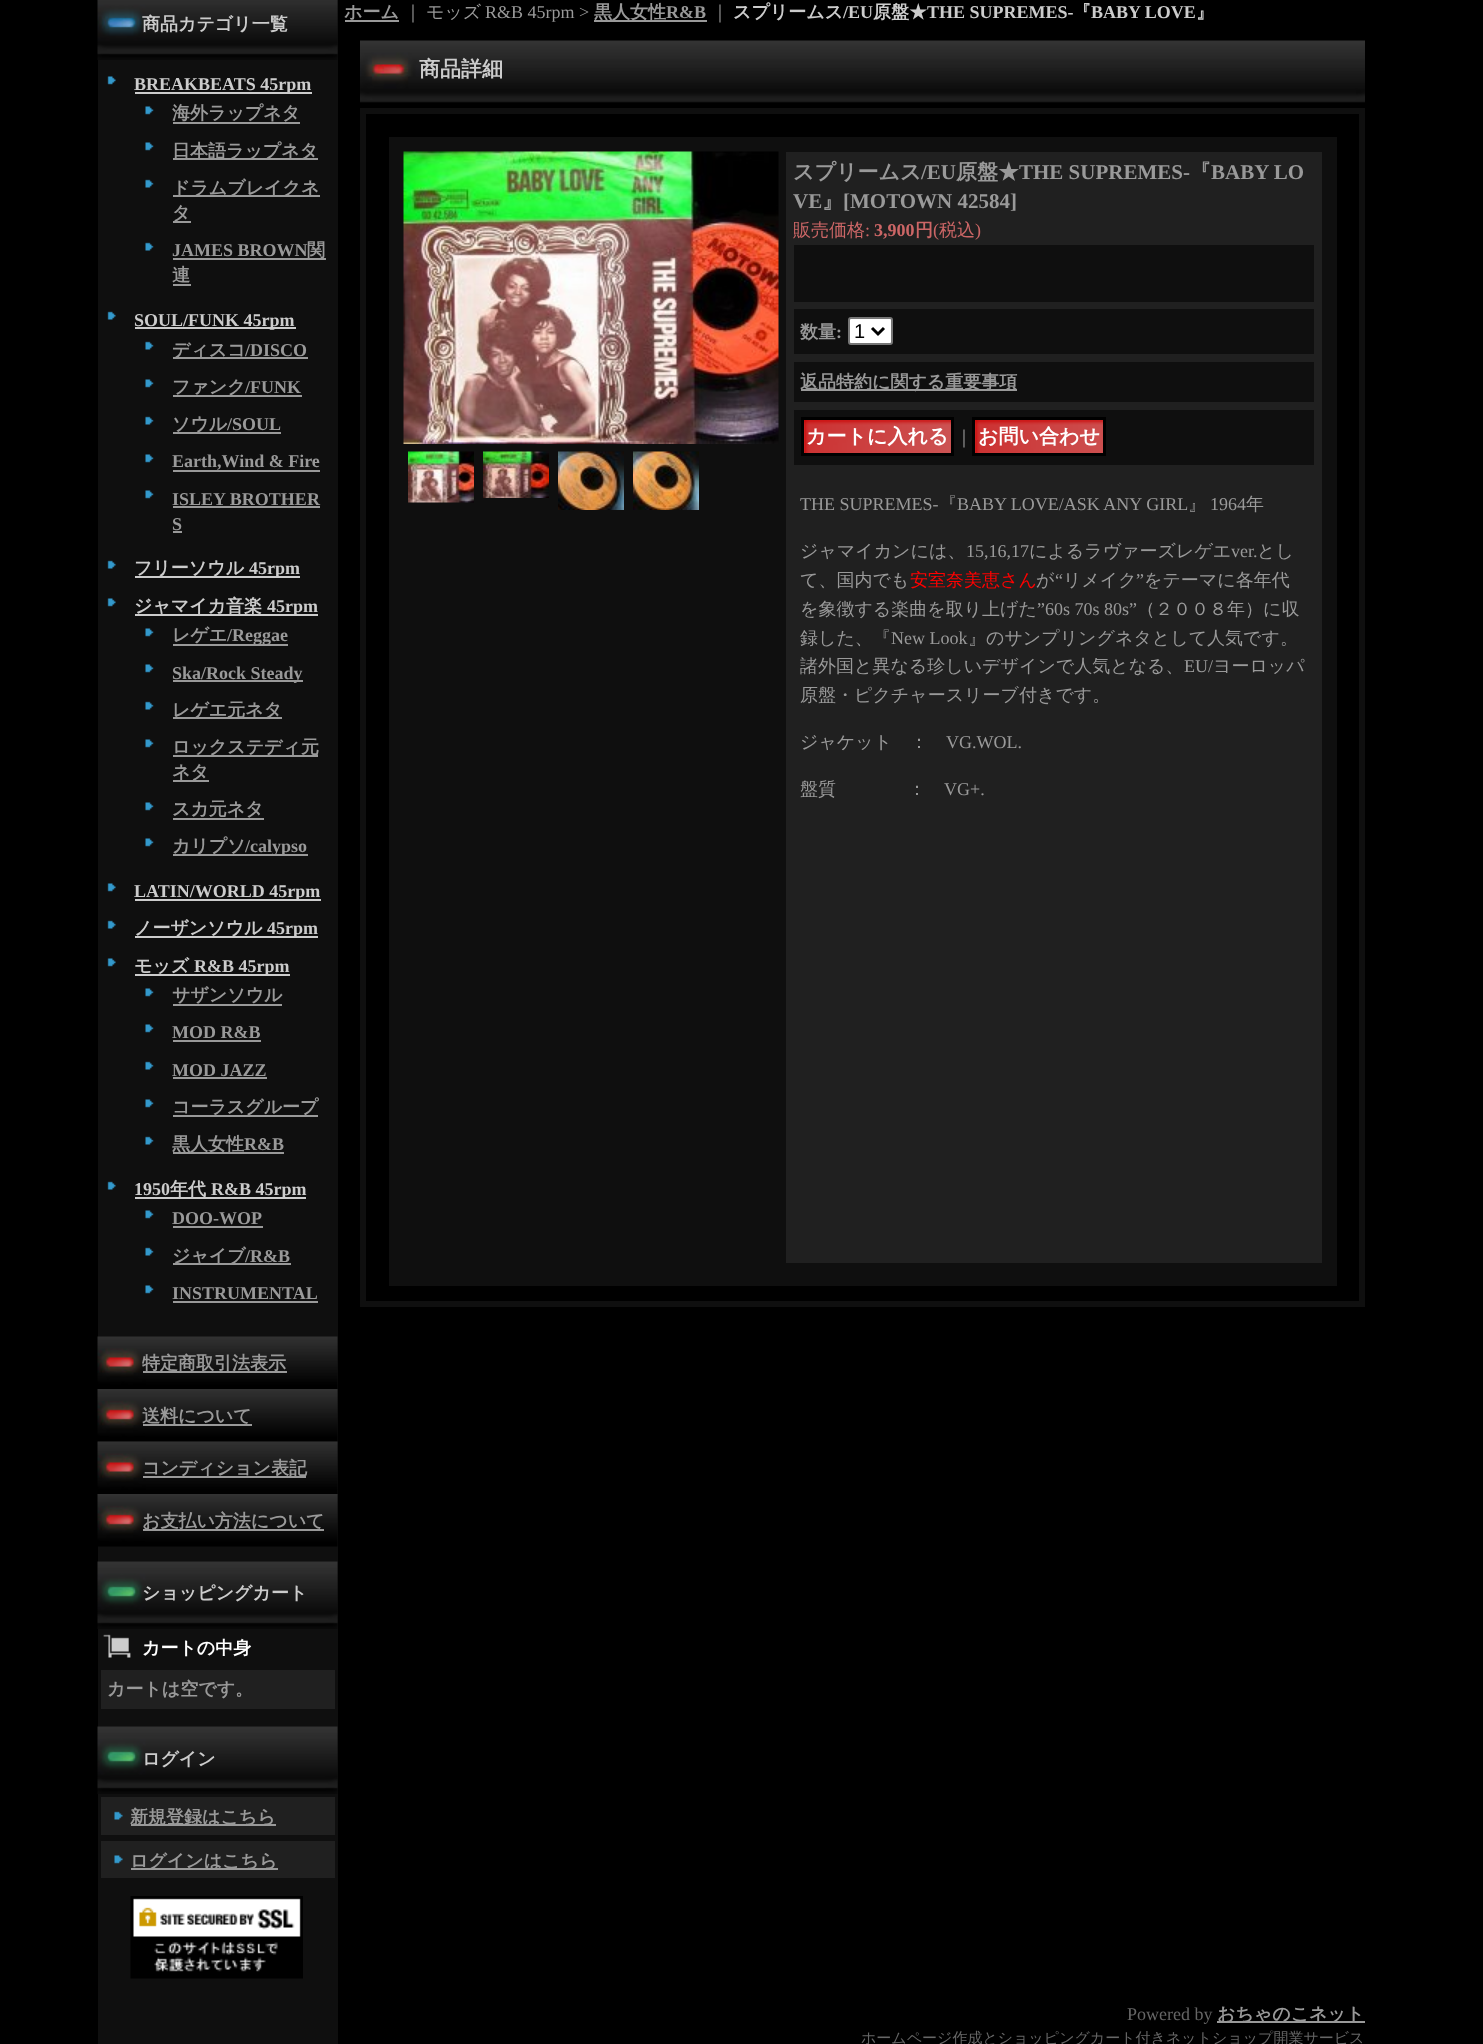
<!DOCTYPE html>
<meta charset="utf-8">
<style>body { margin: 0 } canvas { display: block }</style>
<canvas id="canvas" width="1483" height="2044"></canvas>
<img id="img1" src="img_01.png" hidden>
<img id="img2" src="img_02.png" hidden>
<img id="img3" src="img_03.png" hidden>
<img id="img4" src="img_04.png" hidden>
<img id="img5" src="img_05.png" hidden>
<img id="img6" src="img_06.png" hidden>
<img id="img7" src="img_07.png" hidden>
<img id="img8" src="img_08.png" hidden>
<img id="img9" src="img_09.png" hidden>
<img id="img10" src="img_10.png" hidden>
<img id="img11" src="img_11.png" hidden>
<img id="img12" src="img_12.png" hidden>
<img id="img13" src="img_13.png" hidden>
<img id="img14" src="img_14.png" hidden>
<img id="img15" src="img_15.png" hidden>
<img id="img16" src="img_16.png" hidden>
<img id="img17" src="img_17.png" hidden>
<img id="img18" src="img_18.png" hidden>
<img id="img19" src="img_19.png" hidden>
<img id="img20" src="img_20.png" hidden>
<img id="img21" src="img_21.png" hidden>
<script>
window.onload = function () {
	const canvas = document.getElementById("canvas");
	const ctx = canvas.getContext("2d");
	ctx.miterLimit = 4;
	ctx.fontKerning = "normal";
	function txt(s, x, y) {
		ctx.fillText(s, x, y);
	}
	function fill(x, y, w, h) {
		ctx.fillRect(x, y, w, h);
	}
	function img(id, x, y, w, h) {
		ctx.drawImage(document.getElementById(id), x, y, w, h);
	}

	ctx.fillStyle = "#000000";
	fill(0, 0, 1483, 2044);
	ctx.fillStyle = "#0F0F0F";
	fill(98, 0, 240, 2044);
	img("img1", 97, 0, 241, 60);
	img("img2", 107, 76, 9, 9);
	ctx.fillStyle = "#CCCCCC";
	fill(135, 92, 177, 2);
	img("img3", 145, 106, 9, 9);
	ctx.fillStyle = "#999999";
	fill(173, 122, 127, 2);
	img("img3", 145, 142, 9, 9);
	fill(173, 158, 145, 2);
	img("img4", 145, 179, 9, 9);
	fill(173, 195, 147, 2);
	fill(173, 221, 18, 2);
	img("img4", 145, 242, 9, 9);
	fill(173, 258, 153, 2);
	fill(173, 284, 18, 2);
	img("img5", 107, 311, 9, 9);
	ctx.fillStyle = "#CCCCCC";
	fill(135, 327, 161, 2);
	img("img4", 145, 341, 9, 9);
	ctx.fillStyle = "#999999";
	fill(173, 357, 135, 2);
	img("img3", 145, 379, 9, 9);
	fill(173, 395, 129, 2);
	img("img4", 145, 416, 9, 9);
	fill(173, 432, 108, 2);
	img("img3", 145, 454, 9, 9);
	fill(173, 470, 147, 2);
	img("img3", 145, 490, 9, 9);
	fill(173, 506, 147, 2);
	fill(173, 531, 9, 2);
	img("img5", 107, 560, 9, 9);
	ctx.fillStyle = "#CCCCCC";
	fill(135, 576, 165, 2);
	img("img2", 107, 598, 9, 9);
	fill(135, 614, 183, 2);
	img("img3", 145, 628, 9, 9);
	ctx.fillStyle = "#999999";
	fill(173, 644, 115, 2);
	img("img3", 145, 664, 9, 9);
	fill(173, 680, 130, 2);
	img("img4", 145, 701, 9, 9);
	fill(173, 717, 109, 2);
	img("img3", 145, 739, 9, 9);
	fill(173, 755, 145, 2);
	fill(173, 780, 36, 2);
	img("img3", 145, 802, 9, 9);
	fill(173, 818, 91, 2);
	img("img3", 145, 838, 9, 9);
	fill(173, 854, 135, 2);
	img("img2", 107, 883, 9, 9);
	ctx.fillStyle = "#CCCCCC";
	fill(135, 899, 186, 2);
	img("img5", 107, 920, 9, 9);
	fill(135, 936, 183, 2);
	img("img2", 107, 958, 9, 9);
	fill(135, 974, 155, 2);
	img("img3", 145, 988, 9, 9);
	ctx.fillStyle = "#999999";
	fill(173, 1004, 109, 2);
	img("img3", 145, 1024, 9, 9);
	fill(173, 1040, 88, 2);
	img("img4", 145, 1061, 9, 9);
	fill(173, 1077, 94, 2);
	img("img3", 145, 1099, 9, 9);
	fill(173, 1115, 145, 2);
	img("img4", 145, 1136, 9, 9);
	fill(173, 1152, 111, 2);
	img("img5", 107, 1181, 9, 9);
	ctx.fillStyle = "#CCCCCC";
	fill(135, 1197, 171, 2);
	img("img3", 145, 1210, 9, 9);
	ctx.fillStyle = "#999999";
	fill(173, 1226, 90, 2);
	img("img4", 145, 1247, 9, 9);
	fill(173, 1263, 118, 2);
	img("img3", 145, 1285, 9, 9);
	fill(173, 1301, 145, 2);
	img("img6", 97, 1336, 241, 53);
	fill(143, 1371, 144, 2);
	img("img7", 97, 1389, 241, 53);
	fill(143, 1424, 109, 2);
	img("img8", 97, 1441, 241, 53);
	fill(143, 1476, 163, 2);
	img("img7", 97, 1494, 241, 53);
	fill(143, 1529, 181, 2);
	img("img9", 97, 1561, 241, 68);
	img("img10", 103, 1634, 28, 24);
	ctx.fillStyle = "#202020";
	fill(101, 1670, 234, 39);
	img("img9", 97, 1726, 241, 68);
	fill(101, 1797, 234, 38);
	img("img11", 114, 1811, 9, 9);
	ctx.fillStyle = "#999999";
	fill(131, 1824, 145, 2);
	ctx.fillStyle = "#202020";
	fill(101, 1841, 234, 37);
	img("img12", 114, 1855, 9, 9);
	ctx.fillStyle = "#999999";
	fill(131, 1868, 147, 2);
	img("img13", 130, 1896, 173, 83);
	fill(345, 20, 54, 2);
	fill(594, 20, 113, 2);
	img("img14", 360, 40, 1005, 63);
	ctx.fillStyle = "#0F0F0F";
	fill(360, 108, 1005, 6);
	fill(1359, 108, 6, 1199);
	fill(360, 108, 6, 1178);
	fill(389, 137, 948, 1149);
	img("img15", 403, 151, 376, 293);
	img("img16", 408, 451, 66, 52);
	img("img17", 483, 451, 66, 47);
	img("img18", 558, 451, 66, 59);
	img("img19", 633, 451, 66, 59);
	ctx.fillStyle = "#202020";
	fill(786, 152, 536, 1111);
	ctx.fillStyle = "#0F0F0F";
	fill(794, 245, 520, 57);
	fill(794, 309, 520, 45);
	ctx.fillStyle = "#FFFFFF";
	ctx.beginPath();
	ctx.roundRect(849, 318, 43, 26, 2);
	ctx.fill();
	ctx.strokeStyle = "#767676";
	ctx.lineWidth = 2;
	ctx.stroke();
	ctx.beginPath();
	ctx.moveTo(872, 328);
	ctx.lineTo(878, 334);
	ctx.lineTo(884, 328);
	ctx.strokeStyle = "#000000";
	ctx.lineWidth = 3;
	ctx.stroke();
	ctx.fillStyle = "#0F0F0F";
	fill(794, 362, 520, 40);
	ctx.fillStyle = "#999999";
	fill(801, 389, 216, 2);
	ctx.fillStyle = "#0F0F0F";
	fill(794, 410, 520, 55);
	img("img20", 804, 420, 147, 33);
	ctx.strokeRect(802.5, 418.5, 150, 36);
	img("img21", 975, 420, 128, 33);
	ctx.strokeRect(973.5, 418.5, 131, 36);
	fill(360, 1301, 1005, 6);
	fill(360, 1286, 6, 21);
	ctx.fillStyle = "#999999";
	fill(1217, 2021, 148, 2);
	ctx.font = "bold 18px WenQuanYi Zen Hei";
	ctx.fillStyle = "#CCCCCC";
	txt("商品カテゴリ一覧", 142, 30);
	ctx.font = "bold 18px Liberation Serif";
	txt("BREAKBEATS 45rpm", 134, 90);
	ctx.font = "bold 18px WenQuanYi Zen Hei";
	ctx.fillStyle = "#999999";
	txt("海外ラップネタ", 172, 119);
	txt("日本語ラップネタ", 172, 157);
	txt("ドラムブレイクネ", 172, 194);
	txt("タ", 172, 219);
	ctx.font = "bold 18px Liberation Serif";
	txt("JAMES BROWN", 172, 256);
	ctx.font = "bold 18px WenQuanYi Zen Hei";
	txt("関", 307, 256);
	txt("連", 172, 281);
	ctx.font = "bold 18px Liberation Serif";
	ctx.fillStyle = "#CCCCCC";
	txt("SOUL/FUNK 45rpm", 134, 326);
	ctx.font = "bold 18px WenQuanYi Zen Hei";
	ctx.fillStyle = "#999999";
	txt("ディスコ", 172, 356);
	ctx.font = "bold 18px Liberation Serif";
	txt("/DISCO", 245, 356);
	ctx.font = "bold 18px WenQuanYi Zen Hei";
	txt("ファンク", 172, 393);
	ctx.font = "bold 18px Liberation Serif";
	txt("/FUNK", 245, 393);
	ctx.font = "bold 18px WenQuanYi Zen Hei";
	txt("ソウル", 172, 430);
	ctx.font = "bold 18px Liberation Serif";
	txt("/SOUL", 227, 430);
	txt("Earth,Wind & Fire", 172, 467);
	txt("ISLEY BROTHER", 172, 505);
	txt("S", 172, 530);
	ctx.font = "bold 18px WenQuanYi Zen Hei";
	ctx.fillStyle = "#CCCCCC";
	txt("フリーソウル", 134, 574);
	ctx.font = "bold 18px Liberation Serif";
	txt("45rpm", 249, 574);
	ctx.font = "bold 18px WenQuanYi Zen Hei";
	txt("ジャマイカ音楽", 134, 612);
	ctx.font = "bold 18px Liberation Serif";
	txt("45rpm", 267, 612);
	ctx.font = "bold 18px WenQuanYi Zen Hei";
	ctx.fillStyle = "#999999";
	txt("レゲエ", 172, 641);
	ctx.font = "bold 18px Liberation Serif";
	txt("/Reggae", 227, 641);
	txt("Ska/Rock Steady", 172, 679);
	ctx.font = "bold 18px WenQuanYi Zen Hei";
	txt("レゲエ元ネタ", 172, 716);
	txt("ロックステディ元", 172, 753);
	txt("ネタ", 172, 778);
	txt("スカ元ネタ", 172, 815);
	txt("カリプソ", 172, 852);
	ctx.font = "bold 18px Liberation Serif";
	txt("/calypso", 245, 852);
	ctx.fillStyle = "#CCCCCC";
	txt("LATIN/WORLD 45rpm", 134, 897);
	ctx.font = "bold 18px WenQuanYi Zen Hei";
	txt("ノーザンソウル", 134, 934);
	ctx.font = "bold 18px Liberation Serif";
	txt("45rpm", 267, 934);
	ctx.font = "bold 18px WenQuanYi Zen Hei";
	txt("モッズ", 134, 972);
	ctx.font = "bold 18px Liberation Serif";
	txt("R&B 45rpm", 194, 972);
	ctx.font = "bold 18px WenQuanYi Zen Hei";
	ctx.fillStyle = "#999999";
	txt("サザンソウル", 172, 1001);
	ctx.font = "bold 18px Liberation Serif";
	txt("MOD R&B", 172, 1038);
	txt("MOD JAZZ", 172, 1076);
	ctx.font = "bold 18px WenQuanYi Zen Hei";
	txt("コーラスグループ", 172, 1113);
	txt("黒人女性", 172, 1150);
	ctx.font = "bold 18px Liberation Serif";
	txt("R&B", 244, 1150);
	ctx.fillStyle = "#CCCCCC";
	txt("1950", 134, 1195);
	ctx.font = "bold 18px WenQuanYi Zen Hei";
	txt("年代", 170, 1195);
	ctx.font = "bold 18px Liberation Serif";
	txt("R&B 45rpm", 211, 1195);
	ctx.fillStyle = "#999999";
	txt("DOO-WOP", 172, 1224);
	ctx.font = "bold 18px WenQuanYi Zen Hei";
	txt("ジャイブ", 172, 1262);
	ctx.font = "bold 18px Liberation Serif";
	txt("/R&B", 245, 1262);
	txt("INSTRUMENTAL", 172, 1299);
	ctx.font = "bold 18px WenQuanYi Zen Hei";
	txt("特定商取引法表示", 142, 1369);
	txt("送料について", 142, 1422);
	txt("コンディション表記", 142, 1474);
	txt("お支払い方法について", 142, 1527);
	ctx.fillStyle = "#CCCCCC";
	txt("ショッピングカート", 142, 1599);
	ctx.fillStyle = "#FFFFFF";
	txt("カートの中身", 142, 1654);
	ctx.fillStyle = "#999999";
	txt("カートは空です。", 107, 1695);
	ctx.fillStyle = "#CCCCCC";
	txt("ログイン", 142, 1765);
	ctx.fillStyle = "#999999";
	txt("新規登録はこちら", 130, 1823);
	txt("ログインはこちら", 130, 1867);
	txt("ホーム", 344, 18);
	ctx.font = "500 18px WenQuanYi Zen Hei";
	txt("｜", 404, 18);
	txt("モッズ", 426, 18);
	ctx.font = "18px Liberation Serif";
	txt("R&B 45rpm >", 485, 18);
	ctx.font = "bold 18px WenQuanYi Zen Hei";
	txt("黒人女性", 594, 18);
	ctx.font = "bold 18px Liberation Serif";
	txt("R&B", 666, 18);
	ctx.font = "500 18px WenQuanYi Zen Hei";
	txt("｜", 711, 18);
	ctx.font = "bold 18px WenQuanYi Zen Hei";
	ctx.fillStyle = "#CCCCCC";
	txt("スプリームス", 733, 18);
	ctx.font = "bold 18px Liberation Serif";
	txt("/EU", 843, 18);
	ctx.font = "bold 18px WenQuanYi Zen Hei";
	txt("原盤★", 873, 18);
	ctx.font = "bold 18px Liberation Serif";
	txt("THE SUPREMES-", 927, 18);
	ctx.font = "bold 18px WenQuanYi Zen Hei";
	txt("『", 1073, 18);
	ctx.font = "bold 18px Liberation Serif";
	txt("BABY LOVE", 1091, 18);
	ctx.font = "bold 18px WenQuanYi Zen Hei";
	txt("』", 1196, 18);
	ctx.font = "bold 21px WenQuanYi Zen Hei";
	txt("商品詳細", 419, 76);
	ctx.fillStyle = "#999999";
	txt("スプリームス", 793, 179);
	ctx.font = "bold 21px Liberation Serif";
	txt("/EU", 921, 179);
	ctx.font = "bold 21px WenQuanYi Zen Hei";
	txt("原盤★", 956, 179);
	ctx.font = "bold 21px Liberation Serif";
	txt("THE SUPREMES-", 1019, 179);
	ctx.font = "bold 21px WenQuanYi Zen Hei";
	txt("『", 1190, 179);
	ctx.font = "bold 21px Liberation Serif";
	txt("BABY LO", 1211, 179);
	txt("VE", 793, 208);
	ctx.font = "bold 21px WenQuanYi Zen Hei";
	txt("』", 822, 208);
	ctx.font = "bold 21px Liberation Serif";
	txt("[MOTOWN 42584]", 843, 208);
	ctx.font = "500 18px WenQuanYi Zen Hei";
	ctx.fillStyle = "#CC6666";
	txt("販売価格", 793, 236);
	ctx.font = "18px Liberation Serif";
	txt(":", 865, 236);
	ctx.font = "bold 18px Liberation Serif";
	txt("3,900", 874, 236);
	ctx.font = "bold 18px WenQuanYi Zen Hei";
	txt("円", 915, 236);
	ctx.font = "18px Liberation Serif";
	txt("(", 933, 236);
	ctx.font = "500 18px WenQuanYi Zen Hei";
	txt("税込", 939, 236);
	ctx.font = "18px Liberation Serif";
	txt(")", 975, 236);
	ctx.font = "bold 18px WenQuanYi Zen Hei";
	ctx.fillStyle = "#999999";
	txt("数量", 800, 338);
	ctx.font = "bold 18px Liberation Serif";
	txt(":", 836, 338);
	ctx.font = "20px Liberation Sans";
	ctx.fillStyle = "#000000";
	txt("1", 854, 338);
	ctx.font = "bold 18px WenQuanYi Zen Hei";
	ctx.fillStyle = "#999999";
	txt("返品特約に関する重要事項", 800, 388);
	ctx.font = "bold 20px WenQuanYi Zen Hei";
	ctx.fillStyle = "#FFFFFF";
	txt("カートに入れる", 806, 443);
	ctx.font = "500 18px WenQuanYi Zen Hei";
	ctx.fillStyle = "#999999";
	txt("｜", 955, 443);
	ctx.font = "bold 20px WenQuanYi Zen Hei";
	ctx.fillStyle = "#FFFFFF";
	txt("お問い合わせ", 978, 443);
	ctx.font = "18px Liberation Serif";
	ctx.fillStyle = "#999999";
	txt("THE SUPREMES-", 800, 510);
	ctx.font = "500 18px WenQuanYi Zen Hei";
	txt("『", 939, 510);
	ctx.font = "18px Liberation Serif";
	txt("BABY LOVE/ASK ANY GIRL", 957, 510);
	ctx.font = "500 18px WenQuanYi Zen Hei";
	txt("』", 1188, 510);
	ctx.font = "18px Liberation Serif";
	txt("1964", 1210, 510);
	ctx.font = "500 18px WenQuanYi Zen Hei";
	txt("年", 1246, 510);
	txt("ジャマイカンには、", 800, 557);
	ctx.font = "18px Liberation Serif";
	txt("15,16,17", 966, 557);
	ctx.font = "500 18px WenQuanYi Zen Hei";
	txt("によるラヴァーズレゲエ", 1029, 557);
	ctx.font = "18px Liberation Serif";
	txt("ver.", 1231, 557);
	ctx.font = "500 18px WenQuanYi Zen Hei";
	txt("とし", 1257, 557);
	txt("て、国内でも", 800, 586);
	ctx.fillStyle = "#FF0000";
	txt("安室奈美恵さん", 910, 586);
	ctx.fillStyle = "#999999";
	txt("が", 1036, 586);
	ctx.font = "18px Liberation Serif";
	txt("“", 1055, 586);
	ctx.font = "500 18px WenQuanYi Zen Hei";
	txt("リメイク", 1063, 586);
	ctx.font = "18px Liberation Serif";
	txt("”", 1136, 586);
	ctx.font = "500 18px WenQuanYi Zen Hei";
	txt("をテーマに各年代", 1144, 586);
	txt("を象徴する楽曲を取り上げた", 800, 615);
	ctx.font = "18px Liberation Serif";
	txt("”60s 70s 80s”", 1037, 615);
	ctx.font = "500 18px WenQuanYi Zen Hei";
	txt("（２００８年）に収", 1137, 615);
	txt("録した、『", 800, 644);
	ctx.font = "18px Liberation Serif";
	txt("New Look", 891, 644);
	ctx.font = "500 18px WenQuanYi Zen Hei";
	txt("』のサンプリングネタとして人気です。", 968, 644);
	txt("諸外国と異なる珍しいデザインで人気となる、", 800, 672);
	ctx.font = "18px Liberation Serif";
	txt("EU/", 1184, 672);
	ctx.font = "500 18px WenQuanYi Zen Hei";
	txt("ヨーロッパ", 1213, 672);
	txt("原盤・ピクチャースリーブ付きです。", 800, 701);
	txt("ジャケット　：", 800, 748);
	ctx.font = "18px Liberation Serif";
	txt("VG.WOL.", 946, 748);
	ctx.font = "500 18px WenQuanYi Zen Hei";
	txt("盤質　　　　：", 800, 795);
	ctx.font = "18px Liberation Serif";
	txt("VG+.", 944, 795);
	ctx.fillStyle = "#666666";
	txt("Powered by", 1127, 2020);
	ctx.font = "bold 18px WenQuanYi Zen Hei";
	ctx.fillStyle = "#999999";
	txt("おちゃのこネット", 1217, 2020);
	ctx.font = "500 15px WenQuanYi Zen Hei";
	ctx.fillStyle = "#666666";
	txt("ホームページ作成とショッピングカート付きネットショップ開業サービス", 861, 2043);
};
</script>
